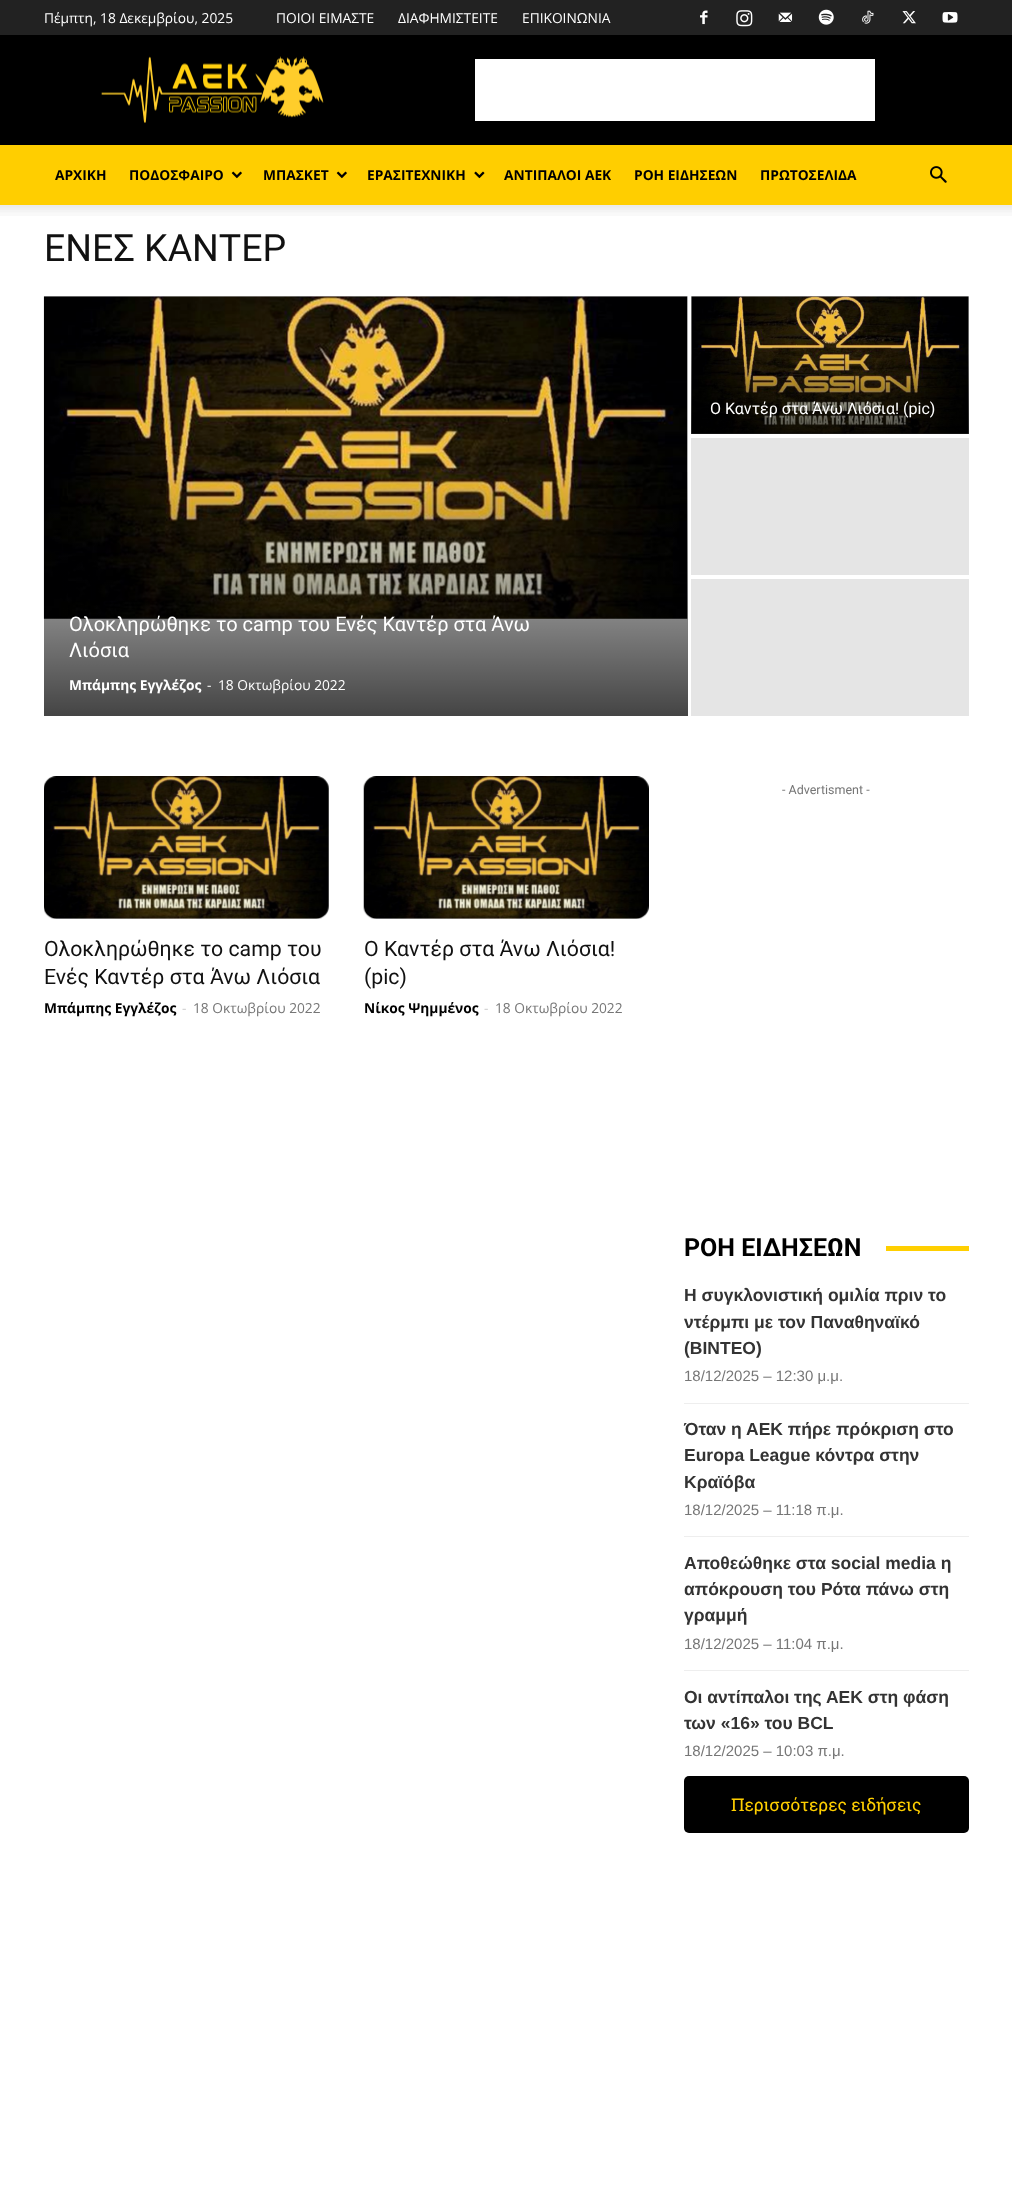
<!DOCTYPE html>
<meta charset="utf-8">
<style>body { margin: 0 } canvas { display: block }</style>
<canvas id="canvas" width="1012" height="2197"></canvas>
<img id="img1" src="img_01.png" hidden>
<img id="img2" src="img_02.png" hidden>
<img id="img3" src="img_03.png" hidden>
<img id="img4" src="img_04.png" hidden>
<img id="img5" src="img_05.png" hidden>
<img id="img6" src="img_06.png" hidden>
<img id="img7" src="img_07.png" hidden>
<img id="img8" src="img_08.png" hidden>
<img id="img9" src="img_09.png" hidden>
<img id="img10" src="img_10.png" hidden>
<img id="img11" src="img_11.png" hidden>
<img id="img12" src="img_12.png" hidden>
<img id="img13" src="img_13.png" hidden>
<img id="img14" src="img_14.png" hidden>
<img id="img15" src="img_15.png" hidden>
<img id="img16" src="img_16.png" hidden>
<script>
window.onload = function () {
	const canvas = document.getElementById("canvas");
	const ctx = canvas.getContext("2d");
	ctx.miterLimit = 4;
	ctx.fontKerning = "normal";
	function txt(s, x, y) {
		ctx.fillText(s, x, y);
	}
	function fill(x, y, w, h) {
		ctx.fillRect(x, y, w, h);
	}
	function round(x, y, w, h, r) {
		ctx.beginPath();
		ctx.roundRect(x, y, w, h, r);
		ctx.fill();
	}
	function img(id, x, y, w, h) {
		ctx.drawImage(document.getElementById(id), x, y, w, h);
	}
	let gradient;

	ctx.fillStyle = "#FFFFFF";
	fill(0, 0, 1012, 2197);
	ctx.fillStyle = "#222222";
	fill(0, 0, 1012, 35);
	img("img1", 700, 10, 8, 15);
	img("img2", 736, 10, 17, 17);
	img("img3", 778, 12, 15, 10);
	img("img4", 818, 9, 16, 16);
	img("img5", 862, 10, 12, 14);
	img("img6", 902, 11, 14, 13);
	img("img7", 942, 12, 16, 11);
	ctx.fillStyle = "#000000";
	fill(0, 35, 1012, 110);
	img("img8", 101, 56, 223, 68);
	ctx.fillStyle = "#FFFFFF";
	fill(475, 59, 400, 62);
	ctx.fillStyle = "#FFCE00";
	fill(0, 145, 1012, 60);
	img("img9", 231, 171, 11, 8);
	img("img9", 336, 171, 11, 8);
	img("img10", 474, 171, 11, 8);
	img("img11", 930, 166, 17, 17);
	img("img12", 0, 205, 1012, 11);
	ctx.fillStyle = "#E5E5E5";
	fill(691, 296, 278, 138);
	img("img13", 691, 296, 278, 138);
	gradient = ctx.createLinearGradient(830, 296, 830, 434);
	gradient.addColorStop(0.4, "rgba(0, 0, 0, 0)");
	gradient.addColorStop(1, "rgba(0, 0, 0, 0.7)");
	ctx.fillStyle = gradient;
	fill(691, 354, 278, 80);
	ctx.fillStyle = "#E5E5E5";
	fill(691, 438, 278, 137);
	fill(691, 579, 278, 137);
	fill(44, 296, 644, 420);
	img("img14", 43, 296, 645, 323);
	gradient = ctx.createLinearGradient(366, 296, 366, 716);
	gradient.addColorStop(0.4, "rgba(0, 0, 0, 0)");
	gradient.addColorStop(1, "rgba(0, 0, 0, 0.7)");
	ctx.fillStyle = gradient;
	fill(44, 472, 644, 244);
	img("img15", 44, 776, 285, 143);
	img("img16", 363, 776, 286, 143);
	ctx.fillStyle = "#FFCF00";
	fill(886, 1246, 83, 5);
	ctx.fillStyle = "#EEEEEE";
	fill(684, 1403, 285, 1);
	fill(684, 1536, 285, 1);
	fill(684, 1670, 285, 1);
	ctx.fillStyle = "#000000";
	round(684, 1776, 285, 57, 5);
	ctx.font = "13.75px Open Sans";
	ctx.fillStyle = "#FFFFFF";
	txt("Πέμπτη, 18 Δεκεμβρίου, 2025", 44, 23);
	txt("ΠΟΙΟΙ ΕΙΜΑΣΤΕ", 276, 23);
	txt("ΔΙΑΦΗΜΙΣΤΕΙΤΕ", 398, 23);
	txt("ΕΠΙΚΟΙΝΩΝΙΑ", 522, 23);
	ctx.font = "bold 13.75px Open Sans";
	ctx.fillStyle = "#000000";
	txt("ΑΡΧΙΚΗ", 55, 180);
	txt("ΠΟΔΟΣΦΑΙΡΟ", 129, 180);
	txt("ΜΠΑΣΚΕΤ", 263, 180);
	txt("ΕΡΑΣΙΤΕΧΝΙΚΗ", 367, 180);
	txt("ΑΝΤΙΠΑΛΟΙ ΑΕΚ", 504, 180);
	txt("ΡΟΗ ΕΙΔΗΣΕΩΝ", 634, 180);
	txt("ΠΡΩΤΟΣΕΛΙΔΑ", 760, 180);
	ctx.font = "37.5px Roboto";
	ctx.fillStyle = "#111111";
	txt("ΕΝΕΣ ΚΑΝΤΕΡ", 44, 261);
	ctx.font = "16px Roboto";
	ctx.fillStyle = "#FFFFFF";
	txt("Ο Καντέρ στα Άνω Λιόσια! (pic)", 710, 414);
	ctx.font = "20px Roboto";
	txt("Ολοκληρώθηκε το camp του Ενές Καντέρ στα Άνω", 69, 631);
	txt("Λιόσια", 69, 657);
	ctx.font = "bold 13.75px Open Sans";
	txt("Μπάμπης Εγγλέζος", 69, 690);
	ctx.font = "13.75px Open Sans";
	txt("-", 207, 690);
	txt("18 Οκτωβρίου 2022", 218, 690);
	ctx.font = "21.25px Roboto";
	ctx.fillStyle = "#111111";
	txt("Ολοκληρώθηκε το camp του", 44, 956);
	txt("Ενές Καντέρ στα Άνω Λιόσια", 44, 984);
	ctx.font = "bold 13.75px Open Sans";
	ctx.fillStyle = "#000000";
	txt("Μπάμπης Εγγλέζος", 44, 1013);
	ctx.font = "13.75px Open Sans";
	ctx.fillStyle = "#CCCCCC";
	txt("-", 182, 1013);
	ctx.fillStyle = "#767676";
	txt("18 Οκτωβρίου 2022", 193, 1013);
	ctx.font = "21.25px Roboto";
	ctx.fillStyle = "#111111";
	txt("Ο Καντέρ στα Άνω Λιόσια!", 364, 956);
	txt("(pic)", 364, 984);
	ctx.font = "bold 13.75px Open Sans";
	ctx.fillStyle = "#000000";
	txt("Νίκος Ψημμένος", 364, 1013);
	ctx.font = "13.75px Open Sans";
	ctx.fillStyle = "#CCCCCC";
	txt("-", 484, 1013);
	ctx.fillStyle = "#767676";
	txt("18 Οκτωβρίου 2022", 495, 1013);
	ctx.font = "12.5px Roboto";
	txt("- Advertisment -", 782, 794);
	ctx.font = "bold 25px Roboto";
	ctx.fillStyle = "#000000";
	txt("ΡΟΗ ΕΙΔΗΣΕΩΝ", 684, 1256);
	ctx.font = "bold 17.5px Liberation Sans";
	ctx.fillStyle = "#333333";
	txt("Η συγκλονιστική ομιλία πριν το", 684, 1301);
	txt("ντέρμπι με τον Παναθηναϊκό", 684, 1328);
	txt("(ΒΙΝΤΕΟ)", 684, 1354);
	ctx.font = "15px Liberation Sans";
	ctx.fillStyle = "#767676";
	txt("18/12/2025 – 12:30 μ.μ.", 684, 1381);
	ctx.font = "bold 17.5px Liberation Sans";
	ctx.fillStyle = "#333333";
	txt("Όταν η ΑΕΚ πήρε πρόκριση στο", 684, 1435);
	txt("Europa League κόντρα στην", 684, 1461);
	txt("Κραϊόβα", 684, 1488);
	ctx.font = "15px Liberation Sans";
	ctx.fillStyle = "#767676";
	txt("18/12/2025 – 11:18 π.μ.", 684, 1515);
	ctx.font = "bold 17.5px Liberation Sans";
	ctx.fillStyle = "#333333";
	txt("Αποθεώθηκε στα social media η", 684, 1569);
	txt("απόκρουση του Ρότα πάνω στη", 684, 1595);
	txt("γραμμή", 684, 1621);
	ctx.font = "15px Liberation Sans";
	ctx.fillStyle = "#767676";
	txt("18/12/2025 – 11:04 π.μ.", 684, 1649);
	ctx.font = "bold 17.5px Liberation Sans";
	ctx.fillStyle = "#333333";
	txt("Οι αντίπαλοι της ΑΕΚ στη φάση", 684, 1703);
	txt("των «16» του BCL", 684, 1729);
	ctx.font = "15px Liberation Sans";
	ctx.fillStyle = "#767676";
	txt("18/12/2025 – 10:03 π.μ.", 684, 1756);
	ctx.font = "17.5px Roboto Slab";
	ctx.fillStyle = "#FFCF00";
	txt("Περισσότερες ειδήσεις", 731, 1811);
};
</script>
